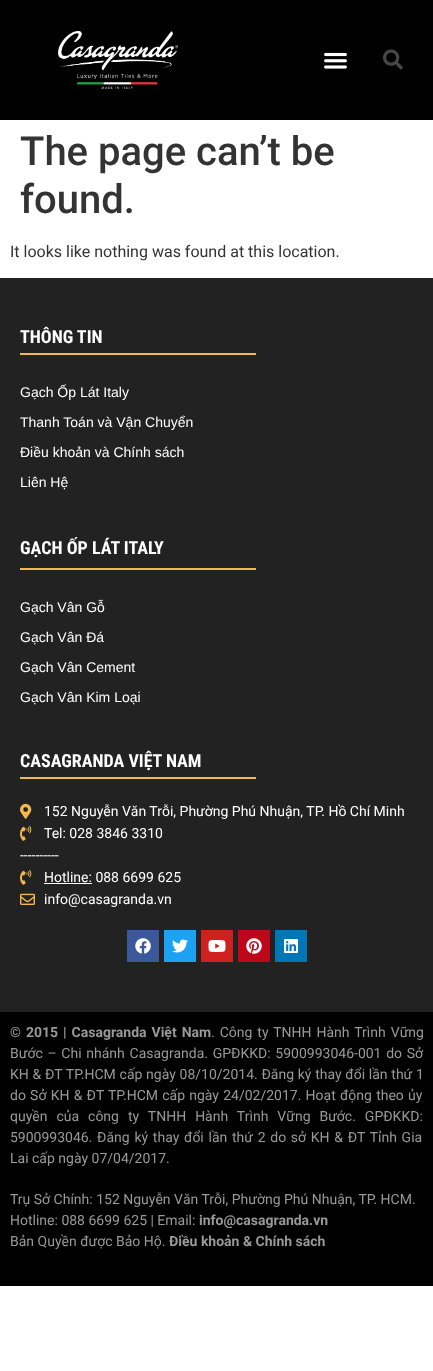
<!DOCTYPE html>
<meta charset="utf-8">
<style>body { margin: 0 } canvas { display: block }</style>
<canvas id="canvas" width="433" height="1371"></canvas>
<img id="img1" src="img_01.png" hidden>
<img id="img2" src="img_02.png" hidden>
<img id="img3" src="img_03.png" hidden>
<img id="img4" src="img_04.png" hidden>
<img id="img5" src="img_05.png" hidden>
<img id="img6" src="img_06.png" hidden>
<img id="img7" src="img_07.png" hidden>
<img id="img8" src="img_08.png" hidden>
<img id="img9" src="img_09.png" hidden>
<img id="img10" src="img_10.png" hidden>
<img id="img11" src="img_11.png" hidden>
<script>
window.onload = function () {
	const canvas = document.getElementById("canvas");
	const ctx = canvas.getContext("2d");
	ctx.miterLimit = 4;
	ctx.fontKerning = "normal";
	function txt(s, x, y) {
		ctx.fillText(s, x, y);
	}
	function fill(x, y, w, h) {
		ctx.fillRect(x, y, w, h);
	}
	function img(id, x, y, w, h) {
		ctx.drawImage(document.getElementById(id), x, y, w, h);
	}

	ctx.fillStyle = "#FFFFFF";
	fill(0, 0, 433, 1371);
	ctx.fillStyle = "#000000";
	fill(0, 0, 433, 120);
	img("img1", 58, 31, 120, 58);
	img("img2", 324, 52, 23, 17);
	img("img3", 383, 49, 20, 21);
	ctx.fillStyle = "#222222";
	fill(0, 278, 433, 734);
	ctx.fillStyle = "#F2B84B";
	fill(20, 353, 236, 2);
	fill(20, 568, 236, 2);
	fill(20, 777, 236, 2);
	img("img4", 20, 803, 12, 16);
	img("img5", 20, 825, 12, 16);
	img("img5", 20, 869, 12, 16);
	ctx.fillStyle = "#FFFFFF";
	fill(44, 883, 48, 1);
	img("img6", 20, 893, 15, 12);
	ctx.fillStyle = "#3B5998";
	fill(127, 930, 32, 32);
	img("img7", 135, 938, 16, 16);
	ctx.fillStyle = "#1DA1F2";
	fill(164, 930, 32, 32);
	img("img8", 172, 939, 16, 14);
	ctx.fillStyle = "#CD201F";
	fill(201, 930, 32, 32);
	img("img9", 208, 940, 18, 12);
	ctx.fillStyle = "#BD081C";
	fill(238, 930, 32, 32);
	img("img10", 246, 938, 16, 16);
	ctx.fillStyle = "#0077B5";
	fill(275, 930, 32, 32);
	img("img11", 284, 939, 14, 14);
	ctx.fillStyle = "#000000";
	fill(0, 1012, 433, 274);
	ctx.font = "500 40px Roboto";
	ctx.fillStyle = "#333333";
	txt("The page can’t be", 20, 165);
	txt("found.", 20, 213);
	ctx.font = "16px Roboto";
	txt("It looks like nothing was found at this location.", 10, 257);
	ctx.font = "bold 18px Roboto Condensed";
	ctx.fillStyle = "#FFFFFF";
	txt("THÔNG TIN", 20, 343);
	ctx.font = "14px Liberation Sans";
	txt("Gạch Ốp Lát Italy", 20, 397);
	txt("Thanh Toán và Vận Chuyển", 20, 427);
	txt("Điều khoản và Chính sách", 20, 457);
	txt("Liên Hệ", 20, 487);
	ctx.font = "bold 18px Roboto Condensed";
	txt("GẠCH ỐP LÁT ITALY", 20, 554);
	ctx.font = "14px Liberation Sans";
	txt("Gạch Vân Gỗ", 20, 612);
	txt("Gạch Vân Đá", 20, 642);
	txt("Gạch Vân Cement", 20, 672);
	txt("Gạch Vân Kim Loại", 20, 702);
	ctx.font = "bold 18px Roboto Condensed";
	txt("CASAGRANDA VIỆT NAM", 20, 767);
	ctx.font = "14px Roboto";
	txt("152 Nguyễn Văn Trỗi, Phường Phú Nhuận, TP. Hồ Chí Minh", 44, 816);
	txt("Tel: 028 3846 3310", 44, 838);
	txt("----------", 20, 860);
	txt("Hotline: 088 6699 625", 44, 882);
	txt("info@casagranda.vn", 44, 904);
	ctx.wordSpacing = "1.5px";
	ctx.font = "bold 14px Roboto";
	ctx.fillStyle = "#999999";
	txt("© 2015 | Casagranda Việt Nam", 10, 1037);
	ctx.font = "14px Roboto";
	txt(". Công ty TNHH Hành Trình Vững", 211, 1037);
	ctx.wordSpacing = "1.25px";
	txt("Bước – Chi nhánh Casagranda. GPĐKKD: 5900993046-001 do Sở", 10, 1058);
	ctx.wordSpacing = "0.25px";
	txt("KH & ĐT TP.HCM cấp ngày 08/10/2014. Đăng ký thay đổi lần thứ 1", 10, 1079);
	ctx.wordSpacing = "0.75px";
	txt("do Sở KH & ĐT TP.HCM cấp ngày 24/02/2017. Hoạt động theo ủy", 10, 1100);
	ctx.wordSpacing = "5.5px";
	txt("quyền của công ty TNHH Hành Trình Vững Bước. GPĐKKD:", 10, 1121);
	ctx.wordSpacing = "1.25px";
	txt("5900993046. Đăng ký thay đổi lần thứ 2 do sở KH & ĐT Tỉnh Gia", 10, 1142);
	ctx.wordSpacing = "0px";
	txt("Lai cấp ngày 07/04/2017.", 10, 1163);
	txt("Trụ Sở Chính: 152 Nguyễn Văn Trỗi, Phường Phú Nhuận, TP. HCM.", 10, 1204);
	txt("Hotline: 088 6699 625 | Email:", 10, 1225);
	ctx.font = "bold 14px Roboto";
	txt("info@casagranda.vn", 199, 1225);
	ctx.font = "14px Roboto";
	txt("Bản Quyền được Bảo Hộ.", 10, 1246);
	ctx.font = "bold 14px Roboto";
	txt("Điều khoản & Chính sách", 169, 1246);
};
</script>
